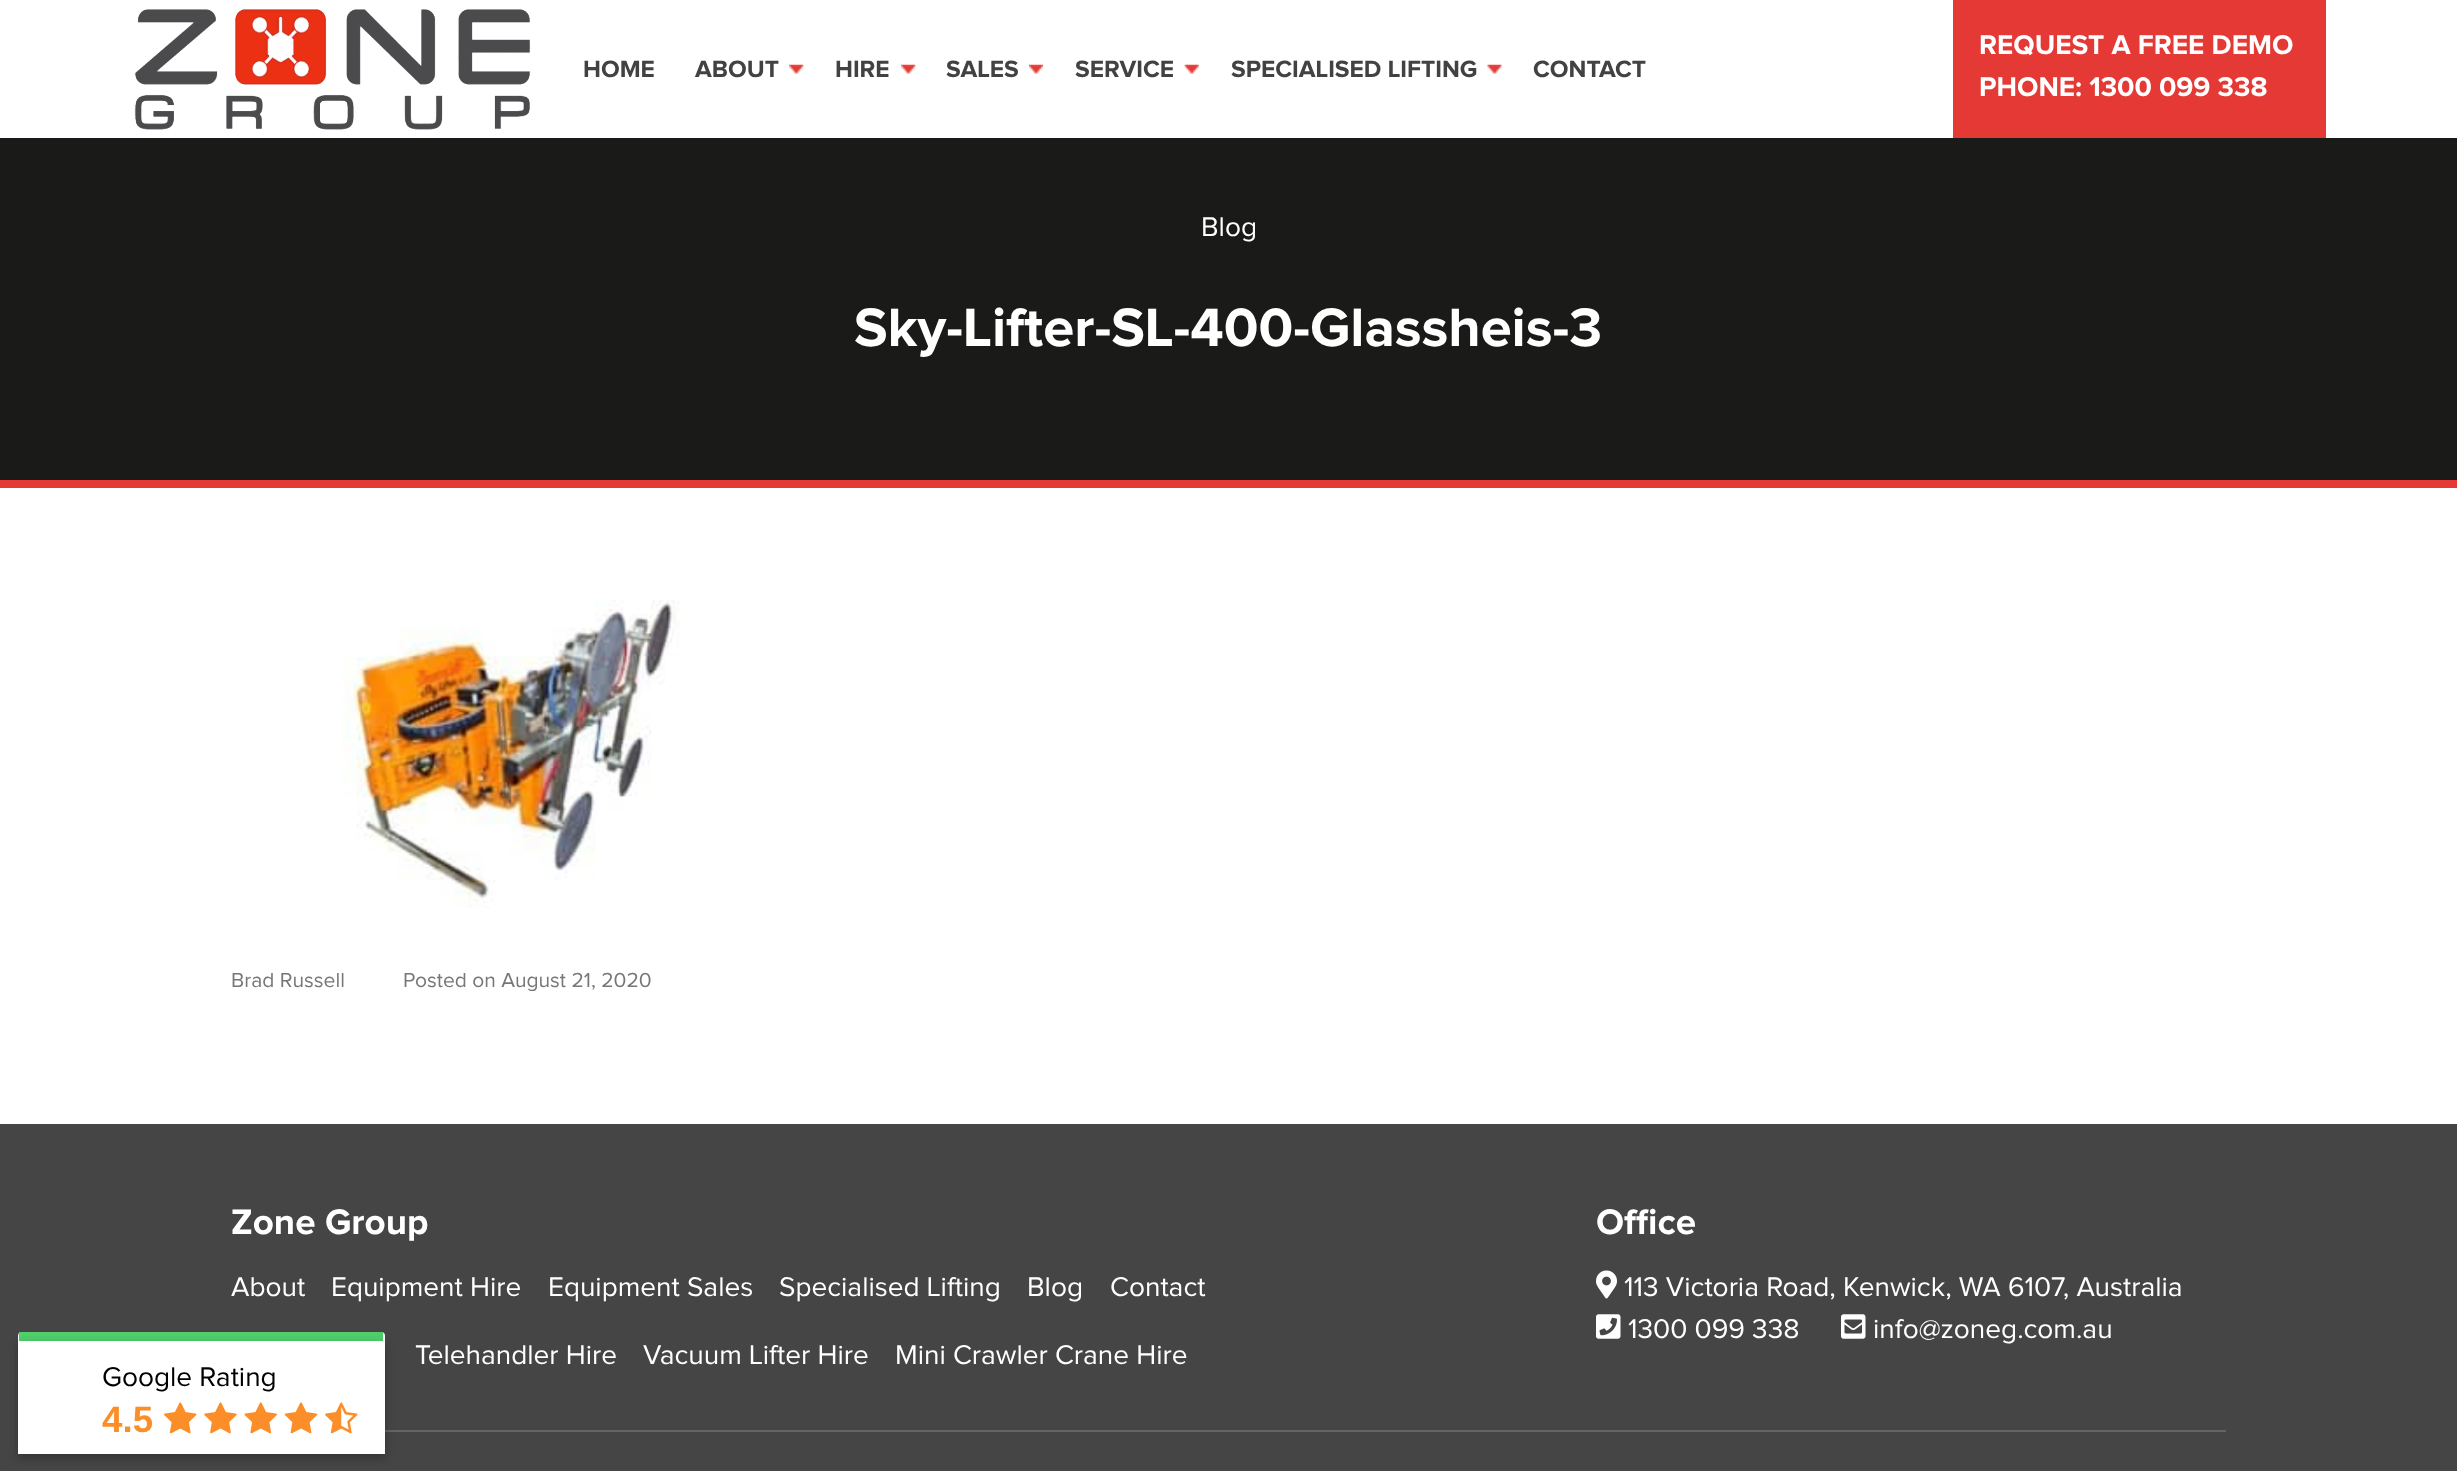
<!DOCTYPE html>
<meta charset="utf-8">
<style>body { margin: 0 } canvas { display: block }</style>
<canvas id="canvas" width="2457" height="1471"></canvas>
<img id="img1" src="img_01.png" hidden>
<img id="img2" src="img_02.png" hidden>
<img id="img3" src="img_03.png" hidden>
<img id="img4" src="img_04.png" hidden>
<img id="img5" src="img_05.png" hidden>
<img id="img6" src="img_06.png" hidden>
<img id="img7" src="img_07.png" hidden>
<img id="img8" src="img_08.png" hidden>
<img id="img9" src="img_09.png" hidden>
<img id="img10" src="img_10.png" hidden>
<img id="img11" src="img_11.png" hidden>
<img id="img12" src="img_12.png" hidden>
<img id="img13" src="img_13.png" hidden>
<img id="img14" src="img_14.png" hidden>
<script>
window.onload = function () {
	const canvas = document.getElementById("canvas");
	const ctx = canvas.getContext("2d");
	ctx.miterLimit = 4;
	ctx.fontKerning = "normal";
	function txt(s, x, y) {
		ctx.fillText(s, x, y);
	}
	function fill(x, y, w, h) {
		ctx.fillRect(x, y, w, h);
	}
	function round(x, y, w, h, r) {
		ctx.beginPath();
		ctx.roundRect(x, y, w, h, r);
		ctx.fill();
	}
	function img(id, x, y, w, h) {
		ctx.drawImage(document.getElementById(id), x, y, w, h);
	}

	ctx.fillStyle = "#FFFFFF";
	fill(0, 0, 2457, 1471);
	img("img1", 134, 9, 397, 121);
	img("img2", 789, 64, 15, 10);
	img("img2", 901, 64, 15, 10);
	img("img3", 1029, 64, 14, 10);
	img("img4", 1184, 64, 15, 10);
	img("img5", 1487, 64, 15, 10);
	ctx.fillStyle = "#E53935";
	fill(1953, 0, 373, 138);
	ctx.fillStyle = "#1A1A19";
	fill(0, 138, 2457, 342);
	ctx.fillStyle = "#E53935";
	fill(0, 480, 2457, 8);
	img("img6", 342, 600, 338, 308);
	ctx.fillStyle = "#454545";
	fill(0, 1124, 2457, 347);
	img("img7", 1596, 1270, 21, 29);
	img("img8", 1596, 1314, 25, 25);
	img("img9", 1841, 1314, 25, 25);
	ctx.fillStyle = "#646464";
	fill(385, 1430, 1841, 2);
	ctx.fillStyle = "#FFFFFF";
	round(18, 1332, 367, 96, 4);
	ctx.fillStyle = "#4FCE6A";
	fill(19, 1332, 364, 9);
	ctx.fillStyle = "rgba(0, 0, 0, 0.26)";
	ctx.filter = "blur(4.5px)";
	ctx.beginPath();
	ctx.rect(18, 1344, 367, 114);
	ctx.fill();
	ctx.filter = "none";
	ctx.fillStyle = "#FFFFFF";
	fill(18, 1341, 367, 113);
	img("img10", 164, 1402, 33, 32);
	img("img11", 204, 1402, 33, 32);
	img("img12", 244, 1402, 33, 32);
	img("img13", 284, 1402, 34, 32);
	img("img14", 325, 1402, 33, 32);
	ctx.font = "bold 24.5px Proxima Nova";
	ctx.fillStyle = "#424242";
	txt("HOME", 583, 77);
	txt("ABOUT", 695, 77);
	txt("HIRE", 835, 77);
	txt("SALES", 946, 77);
	txt("SERVICE", 1075, 77);
	txt("SPECIALISED LIFTING", 1231, 77);
	txt("CONTACT", 1533, 77);
	ctx.font = "bold 28px Proxima Nova";
	ctx.fillStyle = "#FFFFFF";
	txt("REQUEST A FREE DEMO", 1979, 54);
	txt("PHONE: 1300 099 338", 1979, 96);
	ctx.font = "28px Proxima Nova";
	txt("Blog", 1201, 236);
	ctx.font = "bold 56px Proxima Nova";
	txt("Sky-Lifter-SL-400-Glassheis-3", 854, 346);
	ctx.font = "21px Proxima Nova";
	ctx.fillStyle = "#777777";
	txt("Brad Russell", 231, 987);
	txt("Posted on August 21, 2020", 403, 987);
	ctx.font = "bold 36.75px Proxima Nova";
	ctx.fillStyle = "#FFFFFF";
	txt("Zone Group", 231, 1234);
	ctx.font = "28px Proxima Nova";
	txt("About", 231, 1296);
	txt("Equipment Hire", 331, 1296);
	txt("Equipment Sales", 548, 1296);
	txt("Specialised Lifting", 779, 1296);
	txt("Blog", 1027, 1296);
	txt("Contact", 1110, 1296);
	txt("Telehandler Hire", 415, 1364);
	txt("Vacuum Lifter Hire", 643, 1364);
	txt("Mini Crawler Crane Hire", 895, 1364);
	ctx.font = "bold 36.75px Proxima Nova";
	txt("Office", 1596, 1234);
	ctx.font = "28px Proxima Nova";
	txt("113 Victoria Road, Kenwick, WA 6107, Australia", 1624, 1296);
	txt("1300 099 338", 1628, 1338);
	txt("info@zoneg.com.au", 1873, 1338);
	ctx.fillStyle = "#000000";
	txt("Google Rating", 102, 1386);
	ctx.font = "bold 36.75px Liberation Sans";
	ctx.fillStyle = "#FB8E28";
	txt("4.5", 102, 1432);
};
</script>
